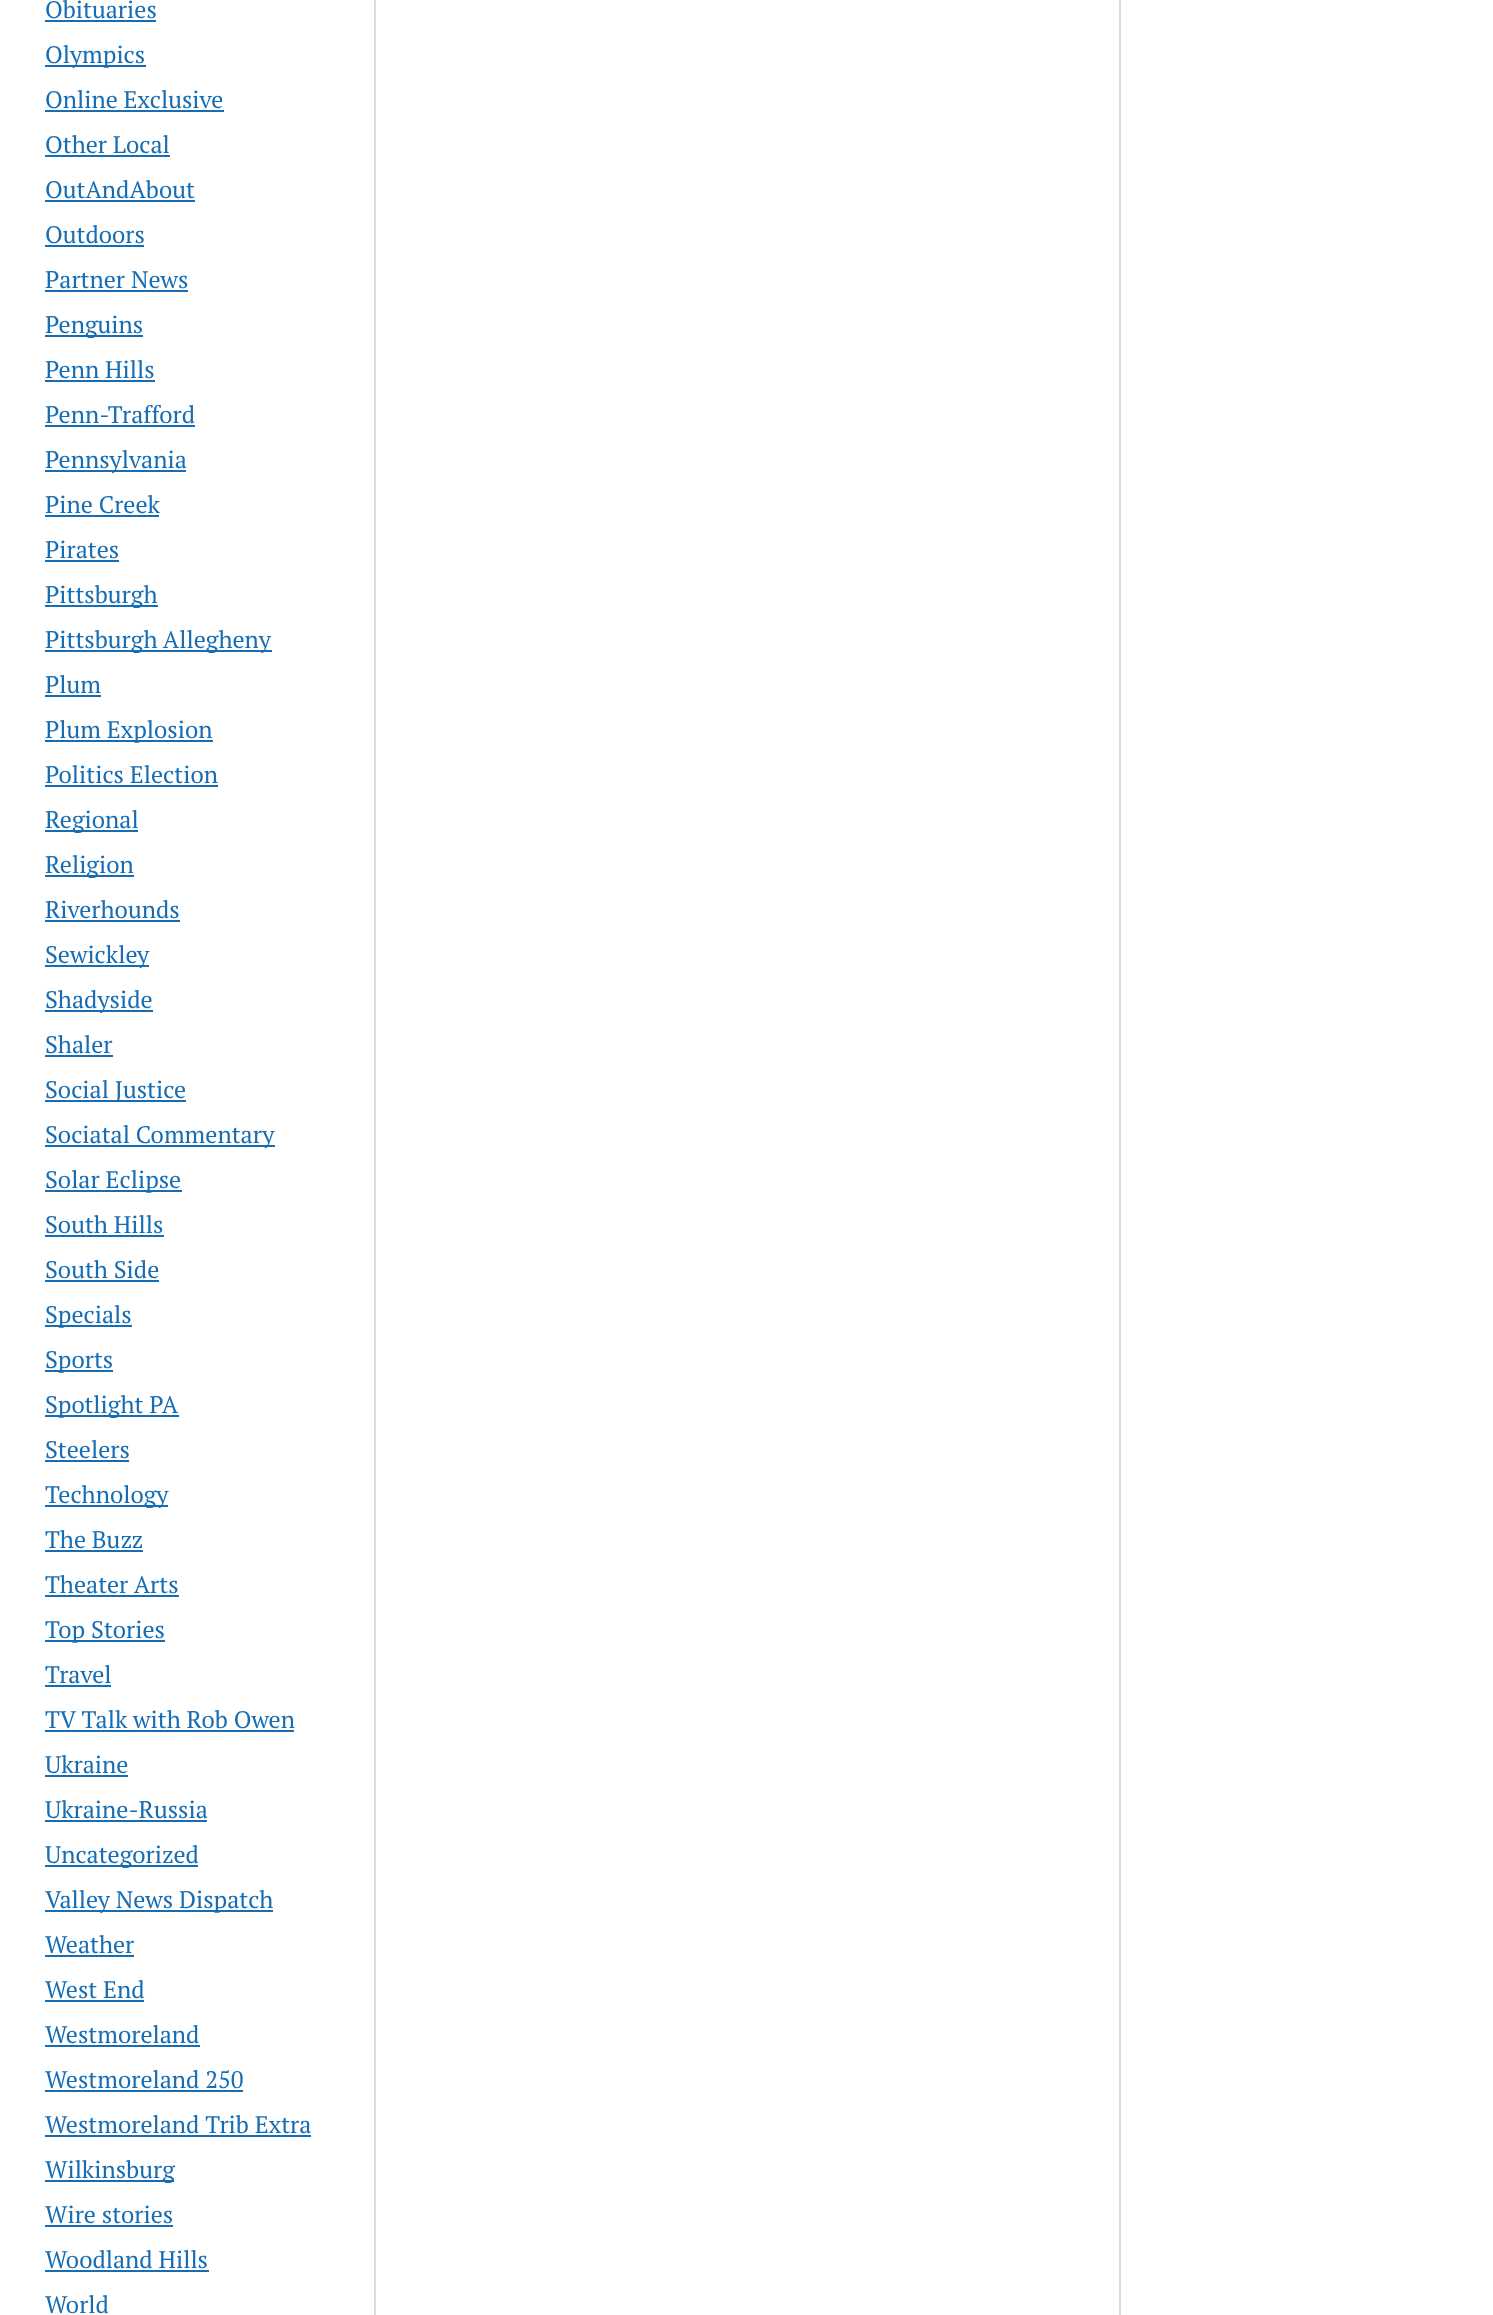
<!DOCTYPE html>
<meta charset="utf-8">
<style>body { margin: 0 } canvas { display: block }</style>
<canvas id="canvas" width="1493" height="2315"></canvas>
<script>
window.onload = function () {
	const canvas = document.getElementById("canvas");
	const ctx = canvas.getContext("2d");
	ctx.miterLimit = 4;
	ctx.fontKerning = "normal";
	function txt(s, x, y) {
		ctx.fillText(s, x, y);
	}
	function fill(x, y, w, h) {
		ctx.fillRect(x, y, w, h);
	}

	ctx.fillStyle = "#FFFFFF";
	fill(0, 0, 1493, 2315);
	ctx.fillStyle = "#176DB3";
	fill(45, 20, 111, 2);
	fill(45, 65, 101, 2);
	fill(45, 110, 179, 2);
	fill(45, 155, 125, 2);
	fill(45, 200, 150, 2);
	fill(45, 245, 99, 2);
	fill(45, 290, 143, 2);
	fill(45, 335, 98, 2);
	fill(45, 380, 110, 2);
	fill(45, 425, 150, 2);
	fill(45, 470, 141, 2);
	fill(45, 515, 114, 2);
	fill(45, 560, 74, 2);
	fill(45, 605, 113, 2);
	fill(45, 650, 227, 2);
	fill(45, 695, 56, 2);
	fill(45, 740, 168, 2);
	fill(45, 785, 173, 2);
	fill(45, 830, 93, 2);
	fill(45, 875, 89, 2);
	fill(45, 920, 135, 2);
	fill(45, 965, 104, 2);
	fill(45, 1010, 108, 2);
	fill(45, 1055, 68, 2);
	fill(45, 1100, 141, 2);
	fill(45, 1145, 230, 2);
	fill(45, 1190, 137, 2);
	fill(45, 1235, 119, 2);
	fill(45, 1280, 114, 2);
	fill(45, 1325, 87, 2);
	fill(45, 1370, 68, 2);
	fill(45, 1415, 134, 2);
	fill(45, 1460, 84, 2);
	fill(45, 1505, 123, 2);
	fill(45, 1550, 98, 2);
	fill(45, 1595, 134, 2);
	fill(45, 1640, 120, 2);
	fill(45, 1685, 66, 2);
	fill(45, 1730, 249, 2);
	fill(45, 1775, 83, 2);
	fill(45, 1820, 162, 2);
	fill(45, 1865, 153, 2);
	fill(45, 1910, 228, 2);
	fill(45, 1955, 89, 2);
	fill(45, 2000, 99, 2);
	fill(45, 2045, 155, 2);
	fill(45, 2090, 198, 2);
	fill(45, 2135, 266, 2);
	fill(45, 2180, 129, 2);
	fill(45, 2225, 128, 2);
	fill(45, 2270, 164, 2);
	ctx.fillStyle = "#DCDCDC";
	fill(374, 0, 2, 2315);
	fill(1119, 0, 2, 2315);
	ctx.font = "24px PT Serif";
	ctx.fillStyle = "#176DB3";
	txt("Obituaries", 45, 18);
	txt("Olympics", 45, 63);
	txt("Online Exclusive", 45, 108);
	txt("Other Local", 45, 153);
	txt("OutAndAbout", 45, 198);
	txt("Outdoors", 45, 243);
	txt("Partner News", 45, 288);
	txt("Penguins", 45, 333);
	txt("Penn Hills", 45, 378);
	txt("Penn-Trafford", 45, 423);
	txt("Pennsylvania", 45, 468);
	txt("Pine Creek", 45, 513);
	txt("Pirates", 45, 558);
	txt("Pittsburgh", 45, 603);
	txt("Pittsburgh Allegheny", 45, 648);
	txt("Plum", 45, 693);
	txt("Plum Explosion", 45, 738);
	txt("Politics Election", 45, 783);
	txt("Regional", 45, 828);
	txt("Religion", 45, 873);
	txt("Riverhounds", 45, 918);
	txt("Sewickley", 45, 963);
	txt("Shadyside", 45, 1008);
	txt("Shaler", 45, 1053);
	txt("Social Justice", 45, 1098);
	txt("Sociatal Commentary", 45, 1143);
	txt("Solar Eclipse", 45, 1188);
	txt("South Hills", 45, 1233);
	txt("South Side", 45, 1278);
	txt("Specials", 45, 1323);
	txt("Sports", 45, 1368);
	txt("Spotlight PA", 45, 1413);
	txt("Steelers", 45, 1458);
	txt("Technology", 45, 1503);
	txt("The Buzz", 45, 1548);
	txt("Theater Arts", 45, 1593);
	txt("Top Stories", 45, 1638);
	txt("Travel", 45, 1683);
	txt("TV Talk with Rob Owen", 45, 1728);
	txt("Ukraine", 45, 1773);
	txt("Ukraine-Russia", 45, 1818);
	txt("Uncategorized", 45, 1863);
	txt("Valley News Dispatch", 45, 1908);
	txt("Weather", 45, 1953);
	txt("West End", 45, 1998);
	txt("Westmoreland", 45, 2043);
	txt("Westmoreland 250", 45, 2088);
	txt("Westmoreland Trib Extra", 45, 2133);
	txt("Wilkinsburg", 45, 2178);
	txt("Wire stories", 45, 2223);
	txt("Woodland Hills", 45, 2268);
	txt("World", 45, 2313);
};
</script>
